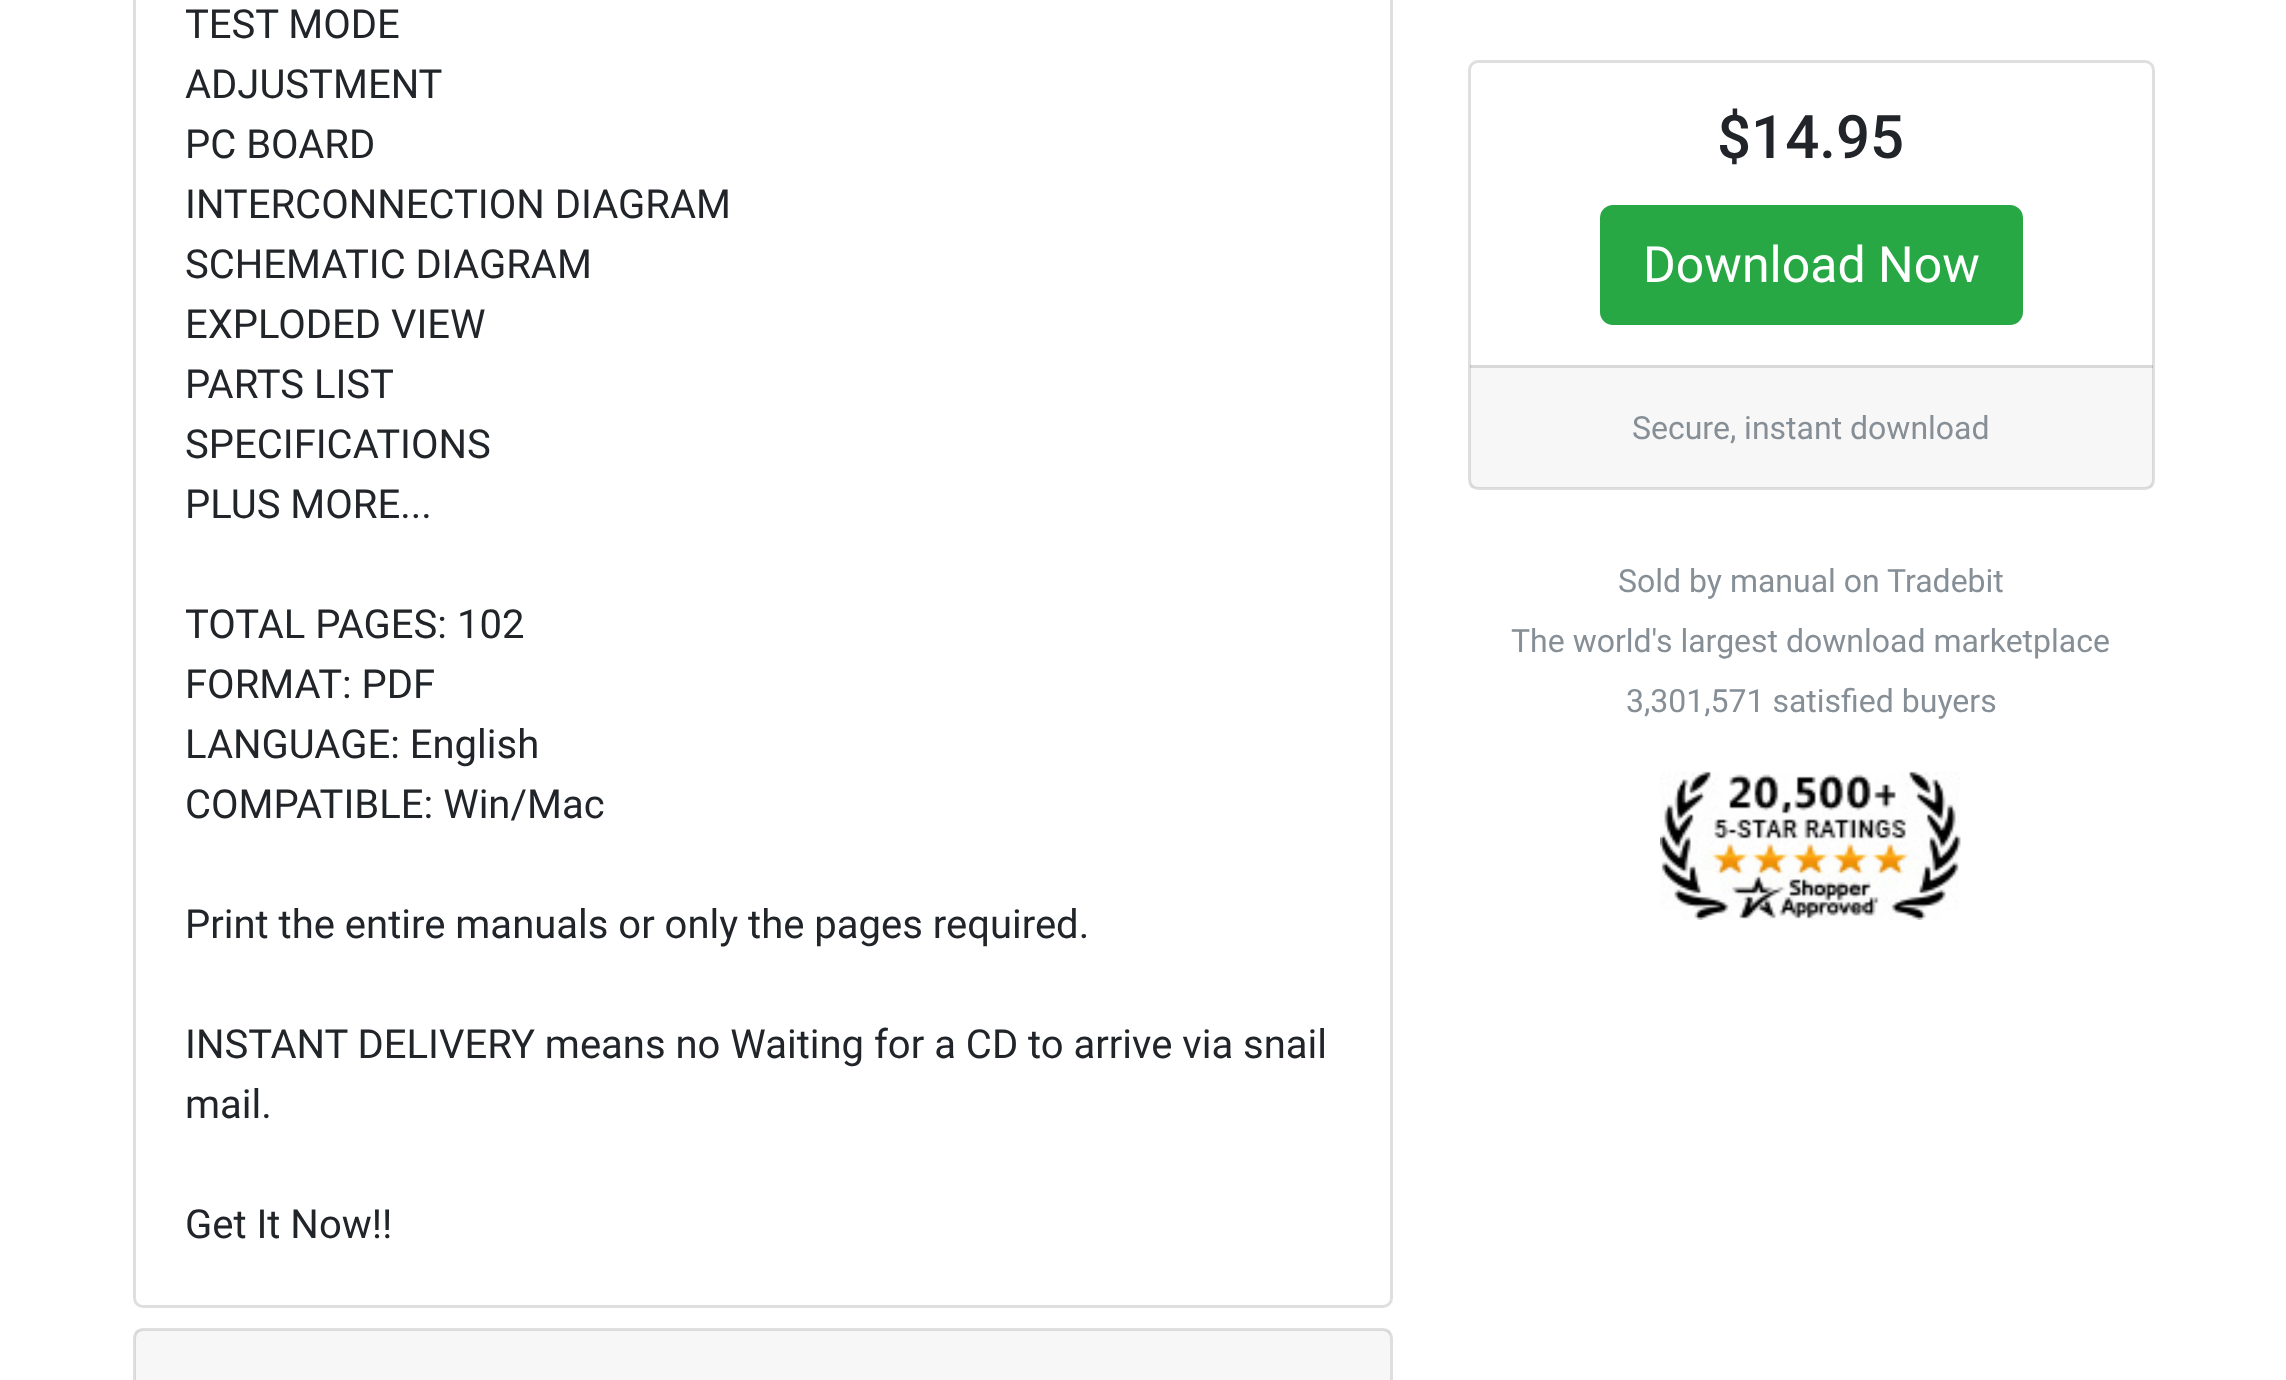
<!DOCTYPE html>
<meta charset="utf-8">
<style>body { margin: 0 } canvas { display: block }</style>
<canvas id="canvas" width="2286" height="1380"></canvas>
<img id="img1" src="img_01.png" hidden>
<script>
window.onload = function () {
	const canvas = document.getElementById("canvas");
	const ctx = canvas.getContext("2d");
	ctx.miterLimit = 4;
	ctx.fontKerning = "normal";
	function txt(s, x, y) {
		ctx.fillText(s, x, y);
	}
	function fill(x, y, w, h) {
		ctx.fillRect(x, y, w, h);
	}
	function img(id, x, y, w, h) {
		ctx.drawImage(document.getElementById(id), x, y, w, h);
	}

	ctx.fillStyle = "#FFFFFF";
	fill(0, 0, 2286, 1380);
	ctx.beginPath();
	ctx.roundRect(134.5, -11.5, 1257, 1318, 8.5);
	ctx.strokeStyle = "#DFDFDF";
	ctx.lineWidth = 3;
	ctx.stroke();
	ctx.beginPath();
	ctx.roundRect(134.5, 1329.5, 1257, 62, 8.5);
	ctx.stroke();
	ctx.fillStyle = "rgba(0, 0, 0, 0.03)";
	fill(135, 1330, 1255, 50);
	ctx.beginPath();
	ctx.roundRect(1469.5, 61.5, 684, 427, 8.5);
	ctx.stroke();
	ctx.fillStyle = "#28A745";
	ctx.beginPath();
	ctx.roundRect(1601.5, 206.5, 420, 117, 11.5);
	ctx.fill();
	ctx.strokeStyle = "#28A745";
	ctx.stroke();
	ctx.fillStyle = "rgba(0, 0, 0, 0.03)";
	fill(1470, 365, 683, 123);
	ctx.fillStyle = "rgba(0, 0, 0, 0.12)";
	fill(1470, 365, 683, 3);
	img("img1", 1660, 771, 301, 149);
	ctx.font = "40px Roboto";
	ctx.fillStyle = "#212529";
	txt("TEST MODE", 185, 38);
	txt("ADJUSTMENT", 185, 98);
	txt("PC BOARD", 185, 158);
	txt("INTERCONNECTION DIAGRAM", 185, 218);
	txt("SCHEMATIC DIAGRAM", 185, 278);
	txt("EXPLODED VIEW", 185, 338);
	txt("PARTS LIST", 185, 398);
	txt("SPECIFICATIONS", 185, 458);
	txt("PLUS MORE...", 185, 518);
	txt("TOTAL PAGES: 102", 185, 638);
	txt("FORMAT: PDF", 185, 698);
	txt("LANGUAGE: English", 185, 758);
	txt("COMPATIBLE: Win/Mac", 185, 818);
	txt("Print the entire manuals or only the pages required.", 185, 938);
	txt("INSTANT DELIVERY means no Waiting for a CD to arrive via snail", 185, 1058);
	txt("mail.", 185, 1118);
	txt("Get It Now!!", 185, 1238);
	ctx.font = "500 60px Roboto";
	txt("$14.95", 1717, 158);
	ctx.font = "50px Roboto";
	ctx.fillStyle = "#FFFFFF";
	txt("Download Now", 1643, 282);
	ctx.font = "32px Roboto";
	ctx.fillStyle = "#868E96";
	txt("Secure, instant download", 1632, 439);
	txt("Sold by manual on Tradebit", 1618, 592);
	txt("The world's largest download marketplace", 1511, 652);
	txt("3,301,571 satisfied buyers", 1626, 712);
};
</script>
